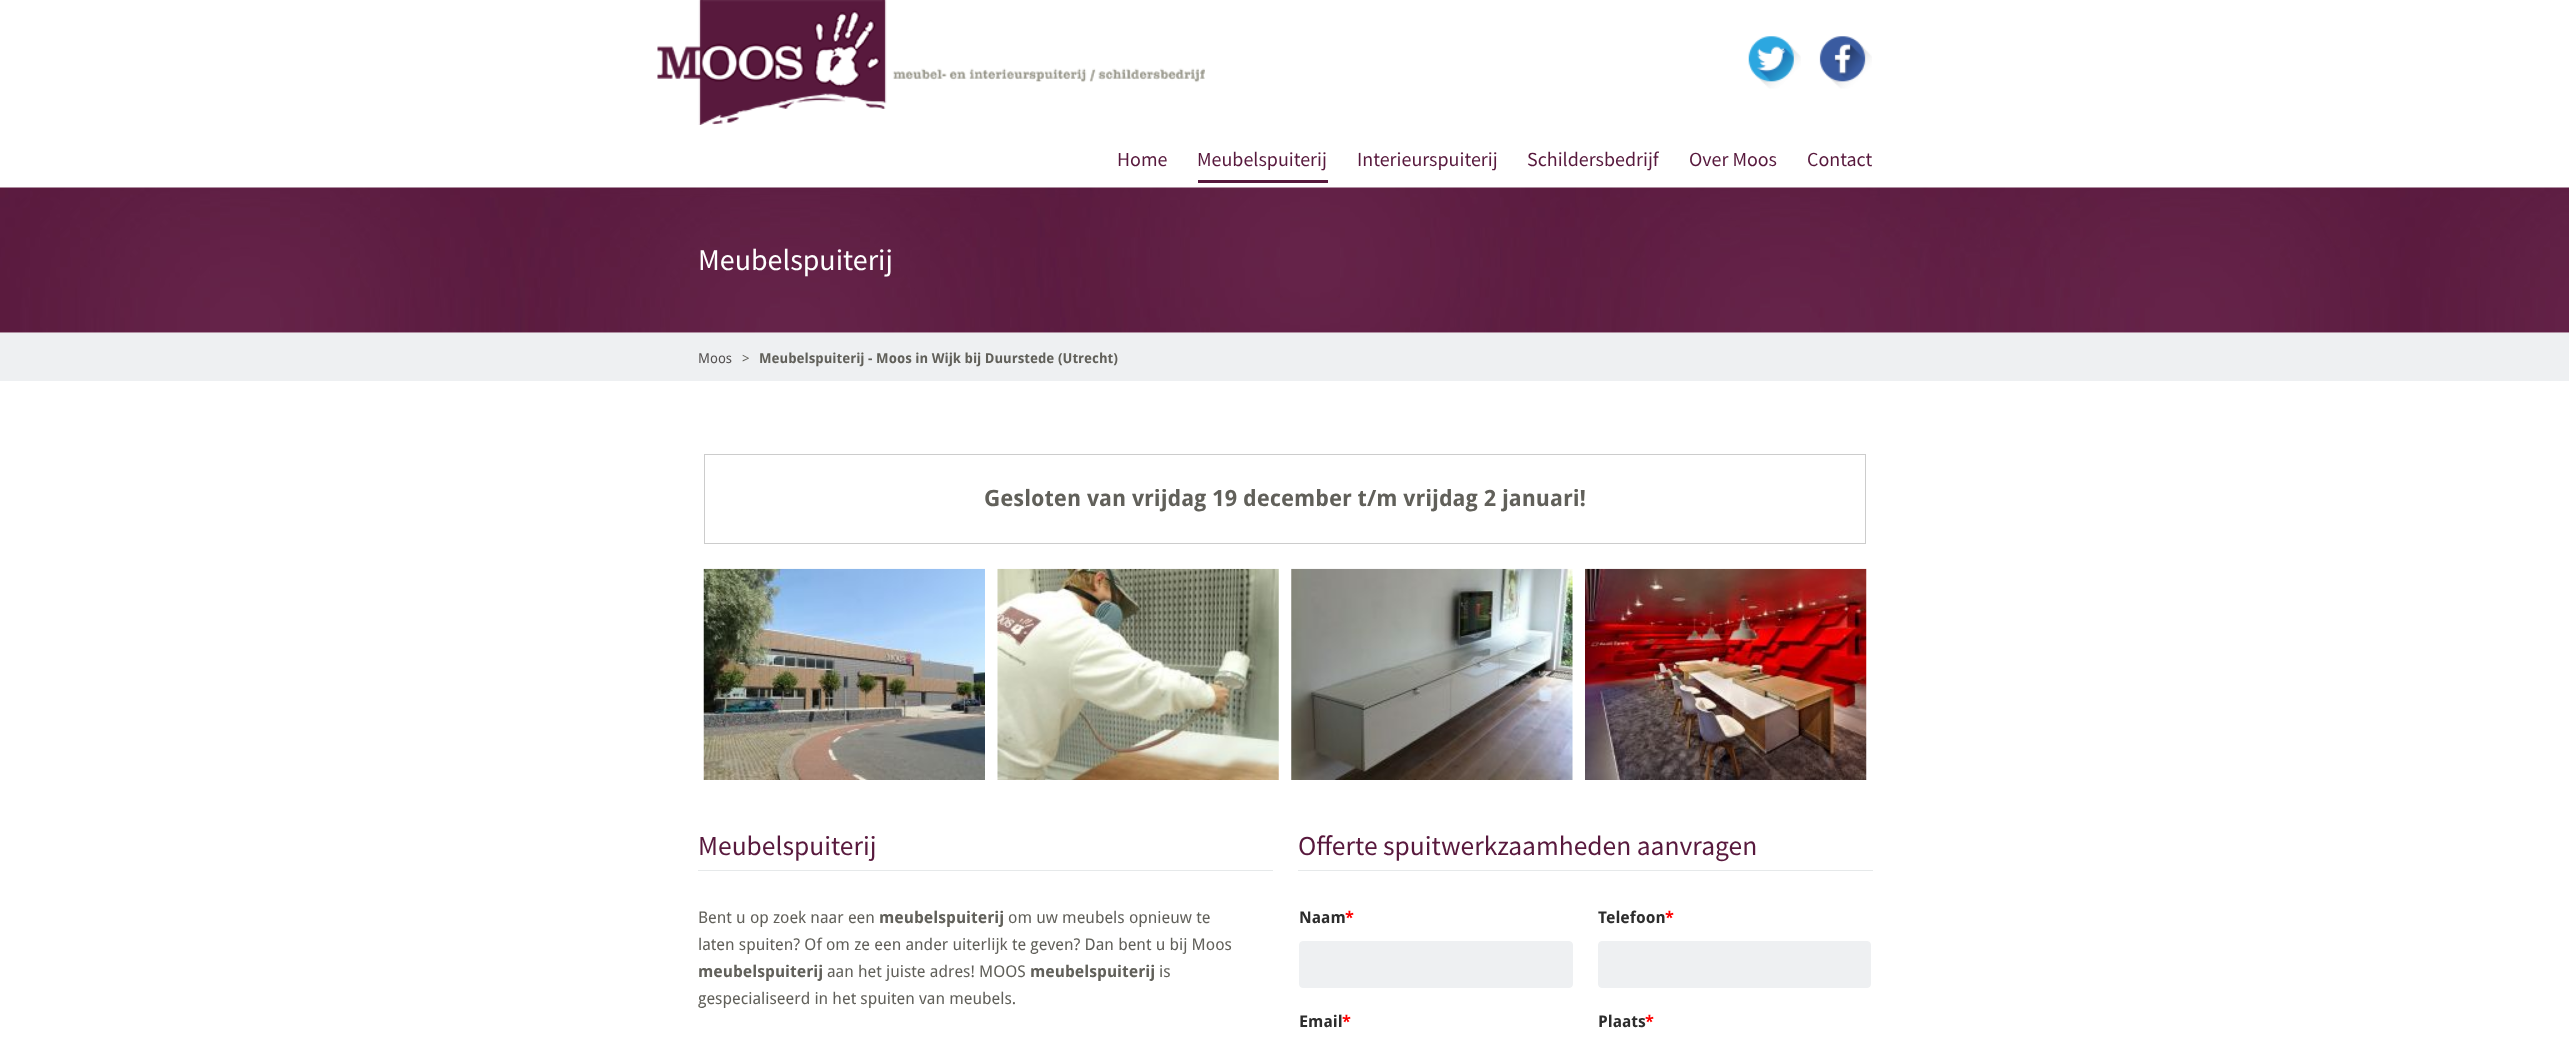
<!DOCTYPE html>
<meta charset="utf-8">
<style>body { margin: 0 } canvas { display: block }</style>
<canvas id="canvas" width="2569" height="1040"></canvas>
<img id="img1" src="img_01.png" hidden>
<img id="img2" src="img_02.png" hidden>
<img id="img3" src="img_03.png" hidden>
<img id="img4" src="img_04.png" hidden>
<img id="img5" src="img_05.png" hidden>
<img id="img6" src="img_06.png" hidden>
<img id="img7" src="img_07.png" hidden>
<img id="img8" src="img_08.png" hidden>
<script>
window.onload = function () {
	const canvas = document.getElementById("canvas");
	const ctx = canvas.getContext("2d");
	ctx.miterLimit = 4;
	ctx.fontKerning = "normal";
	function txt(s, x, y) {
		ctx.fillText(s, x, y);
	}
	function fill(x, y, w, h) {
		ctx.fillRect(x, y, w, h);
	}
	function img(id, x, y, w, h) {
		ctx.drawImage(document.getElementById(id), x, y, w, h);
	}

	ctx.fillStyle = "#FFFFFF";
	fill(0, 0, 2569, 1040);
	img("img1", 657, 0, 548, 125);
	img("img2", 1748, 36, 53, 53);
	img("img3", 1819, 36, 53, 53);
	ctx.fillStyle = "#58193D";
	fill(1198, 180, 130, 3);
	img("img4", 0, 187, 2569, 146);
	ctx.fillStyle = "#EEF0F2";
	fill(0, 333, 2569, 48);
	ctx.strokeStyle = "#CCCCCC";
	ctx.strokeRect(704.5, 454.5, 1161, 89);
	img("img5", 703, 568, 282, 212);
	img("img6", 997, 568, 282, 212);
	img("img7", 1291, 568, 282, 212);
	img("img8", 1585, 568, 282, 212);
	ctx.fillStyle = "#E6E9EA";
	fill(698, 870, 575, 1);
	fill(1298, 870, 575, 1);
	ctx.fillStyle = "#EEF0F2";
	ctx.beginPath();
	ctx.roundRect(1299.5, 941.5, 273, 46, 3.5);
	ctx.fill();
	ctx.strokeStyle = "#EEF0F2";
	ctx.stroke();
	ctx.beginPath();
	ctx.roundRect(1598.5, 941.5, 272, 46, 3.5);
	ctx.fill();
	ctx.stroke();
	ctx.font = "20px Source Sans Pro";
	ctx.fillStyle = "#58193D";
	txt("Home", 1117, 166);
	txt("Meubelspuiterij", 1197, 166);
	txt("Interieurspuiterij", 1357, 166);
	txt("Schildersbedrijf", 1527, 166);
	txt("Over Moos", 1689, 166);
	txt("Contact", 1807, 166);
	ctx.font = "30px Source Sans Pro";
	ctx.fillStyle = "#FFFFFF";
	txt("Meubelspuiterij", 698, 270);
	ctx.font = "13.75px Droid Sans";
	ctx.fillStyle = "#545151";
	txt("Moos", 698, 363);
	ctx.fillStyle = "#61605A";
	txt(">", 742, 363);
	ctx.font = "bold 13.75px Droid Sans";
	txt("Meubelspuiterij - Moos in Wijk bij Duurstede (Utrecht)", 759, 363);
	ctx.font = "bold 22.5px Droid Sans";
	txt("Gesloten van vrijdag 19 december t/m vrijdag 2 januari!", 984, 506);
	ctx.font = "27.5px Source Sans Pro";
	ctx.fillStyle = "#58193D";
	txt("Meubelspuiterij", 698, 855);
	ctx.font = "16.25px Droid Sans";
	ctx.fillStyle = "#61605A";
	txt("Bent u op zoek naar een", 698, 923);
	ctx.font = "bold 16.25px Droid Sans";
	txt("meubelspuiterij", 879, 923);
	ctx.font = "16.25px Droid Sans";
	txt("om uw meubels opnieuw te", 1008, 923);
	txt("laten spuiten? Of om ze een ander uiterlijk te geven? Dan bent u bij Moos", 698, 950);
	ctx.font = "bold 16.25px Droid Sans";
	txt("meubelspuiterij", 698, 977);
	ctx.font = "16.25px Droid Sans";
	txt("aan het juiste adres! MOOS", 827, 977);
	ctx.font = "bold 16.25px Droid Sans";
	txt("meubelspuiterij", 1030, 977);
	ctx.font = "16.25px Droid Sans";
	txt("is", 1159, 977);
	txt("gespecialiseerd in het spuiten van meubels.", 698, 1004);
	ctx.font = "27.5px Source Sans Pro";
	ctx.fillStyle = "#58193D";
	txt("Offerte spuitwerkzaamheden aanvragen", 1298, 855);
	ctx.font = "bold 16.25px Droid Sans";
	ctx.fillStyle = "#2D2D2D";
	txt("Naam", 1299, 923);
	ctx.fillStyle = "#FF0000";
	txt("*", 1345, 923);
	ctx.fillStyle = "#2D2D2D";
	txt("Telefoon", 1598, 923);
	ctx.fillStyle = "#FF0000";
	txt("*", 1665, 923);
	ctx.fillStyle = "#2D2D2D";
	txt("Email", 1299, 1027);
	ctx.fillStyle = "#FF0000";
	txt("*", 1342, 1027);
	ctx.fillStyle = "#2D2D2D";
	txt("Plaats", 1598, 1027);
	ctx.fillStyle = "#FF0000";
	txt("*", 1645, 1027);
};
</script>
